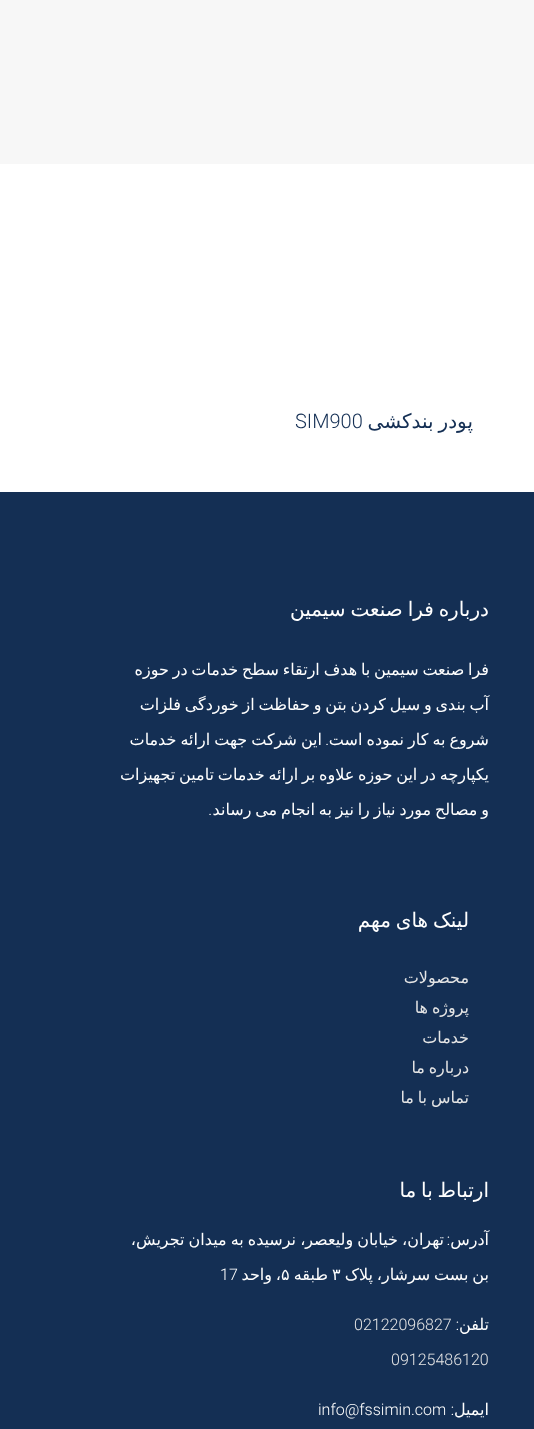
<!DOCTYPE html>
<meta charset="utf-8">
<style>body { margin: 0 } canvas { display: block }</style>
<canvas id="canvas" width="534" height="1429"></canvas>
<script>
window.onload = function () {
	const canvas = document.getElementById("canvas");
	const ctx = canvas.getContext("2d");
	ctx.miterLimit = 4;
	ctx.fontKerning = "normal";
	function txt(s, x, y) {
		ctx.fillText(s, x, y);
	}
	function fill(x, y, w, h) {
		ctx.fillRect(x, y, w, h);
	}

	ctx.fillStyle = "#FFFFFF";
	fill(0, 0, 534, 1429);
	ctx.fillStyle = "#F7F7F7";
	fill(0, 0, 534, 164);
	ctx.fillStyle = "#142F54";
	fill(0, 492, 534, 937);
	ctx.wordSpacing = "-1.5px";
	ctx.direction = "rtl";
	ctx.font = "20px DejaVu Sans";
	txt("پودر بندکشی", 473, 428);
	ctx.wordSpacing = "0px";
	ctx.direction = "ltr";
	ctx.font = "300 20px Roboto";
	txt("SIM900", 295, 428);
	ctx.wordSpacing = "-1.5px";
	ctx.direction = "rtl";
	ctx.font = "20px DejaVu Sans";
	ctx.fillStyle = "#FFFFFF";
	txt("درباره فرا صنعت سیمین", 489, 616);
	ctx.wordSpacing = "-1.25px";
	ctx.font = "16px DejaVu Sans";
	txt("فرا صنعت سیمین با هدف ارتقاء سطح خدمات در حوزه", 489, 675);
	txt("آب بندی و سیل کردن بتن و حفاظت از خوردگی فلزات", 489, 710);
	ctx.wordSpacing = "-1px";
	txt("شروع به کار نموده است", 489, 745);
	ctx.wordSpacing = "0px";
	ctx.font = "300 16px Roboto";
	txt(".", 329, 745);
	ctx.wordSpacing = "-1px";
	ctx.font = "16px DejaVu Sans";
	txt("این شرکت جهت ارائه خدمات", 322, 745);
	ctx.wordSpacing = "-1.25px";
	txt("یکپارچه در این حوزه علاوه بر ارائه خدمات تامین تجهیزات", 489, 780);
	txt("و مصالح مورد نیاز را نیز به انجام می رساند", 489, 815);
	ctx.wordSpacing = "0px";
	ctx.font = "300 16px Roboto";
	txt(".", 212, 815);
	ctx.wordSpacing = "-1.5px";
	ctx.font = "20px DejaVu Sans";
	txt("لینک های مهم", 469, 927);
	ctx.wordSpacing = "0px";
	ctx.font = "16px DejaVu Sans";
	ctx.fillStyle = "#E5E5E5";
	txt("محصولات", 469, 983);
	ctx.wordSpacing = "-1.25px";
	txt("پروژه ها", 469, 1013);
	ctx.wordSpacing = "0px";
	txt("خدمات", 469, 1043);
	ctx.wordSpacing = "-1.25px";
	txt("درباره ما", 469, 1073);
	txt("تماس با ما", 469, 1103);
	ctx.wordSpacing = "-1.5px";
	ctx.font = "20px DejaVu Sans";
	ctx.fillStyle = "#FFFFFF";
	txt("ارتباط با ما", 489, 1197);
	ctx.wordSpacing = "0px";
	ctx.font = "16px DejaVu Sans";
	txt("آدرس", 489, 1245);
	ctx.wordSpacing = "-1px";
	txt("تهران، خیابان ولیعصر، نرسیده به میدان تجریش،", 444, 1245);
	ctx.wordSpacing = "0px";
	ctx.font = "300 16px Roboto";
	txt(":", 450, 1245);
	ctx.wordSpacing = "-1.25px";
	ctx.font = "16px DejaVu Sans";
	txt("بن بست سرشار، پلاک", 489, 1280);
	ctx.wordSpacing = "0px";
	ctx.direction = "ltr";
	txt("۳", 332, 1280);
	ctx.direction = "rtl";
	txt("طبقه", 328, 1280);
	ctx.direction = "ltr";
	txt("۵", 281, 1280);
	ctx.wordSpacing = "-1.25px";
	ctx.direction = "rtl";
	txt("، واحد", 281, 1280);
	ctx.wordSpacing = "0px";
	ctx.direction = "ltr";
	ctx.font = "300 16px Roboto";
	txt("17", 220, 1280);
	ctx.direction = "rtl";
	ctx.font = "16px DejaVu Sans";
	txt("تلفن", 489, 1330);
	ctx.font = "300 16px Roboto";
	txt(":", 459, 1330);
	ctx.direction = "ltr";
	ctx.fillStyle = "#E5E5E5";
	txt("02122096827", 354, 1330);
	txt("09125486120", 391, 1365);
	ctx.direction = "rtl";
	ctx.font = "16px DejaVu Sans";
	ctx.fillStyle = "#FFFFFF";
	txt("ایمیل", 489, 1415);
	ctx.font = "300 16px Roboto";
	txt(":", 454, 1415);
	ctx.direction = "ltr";
	txt("info@fssimin.com", 318, 1415);
};
</script>
